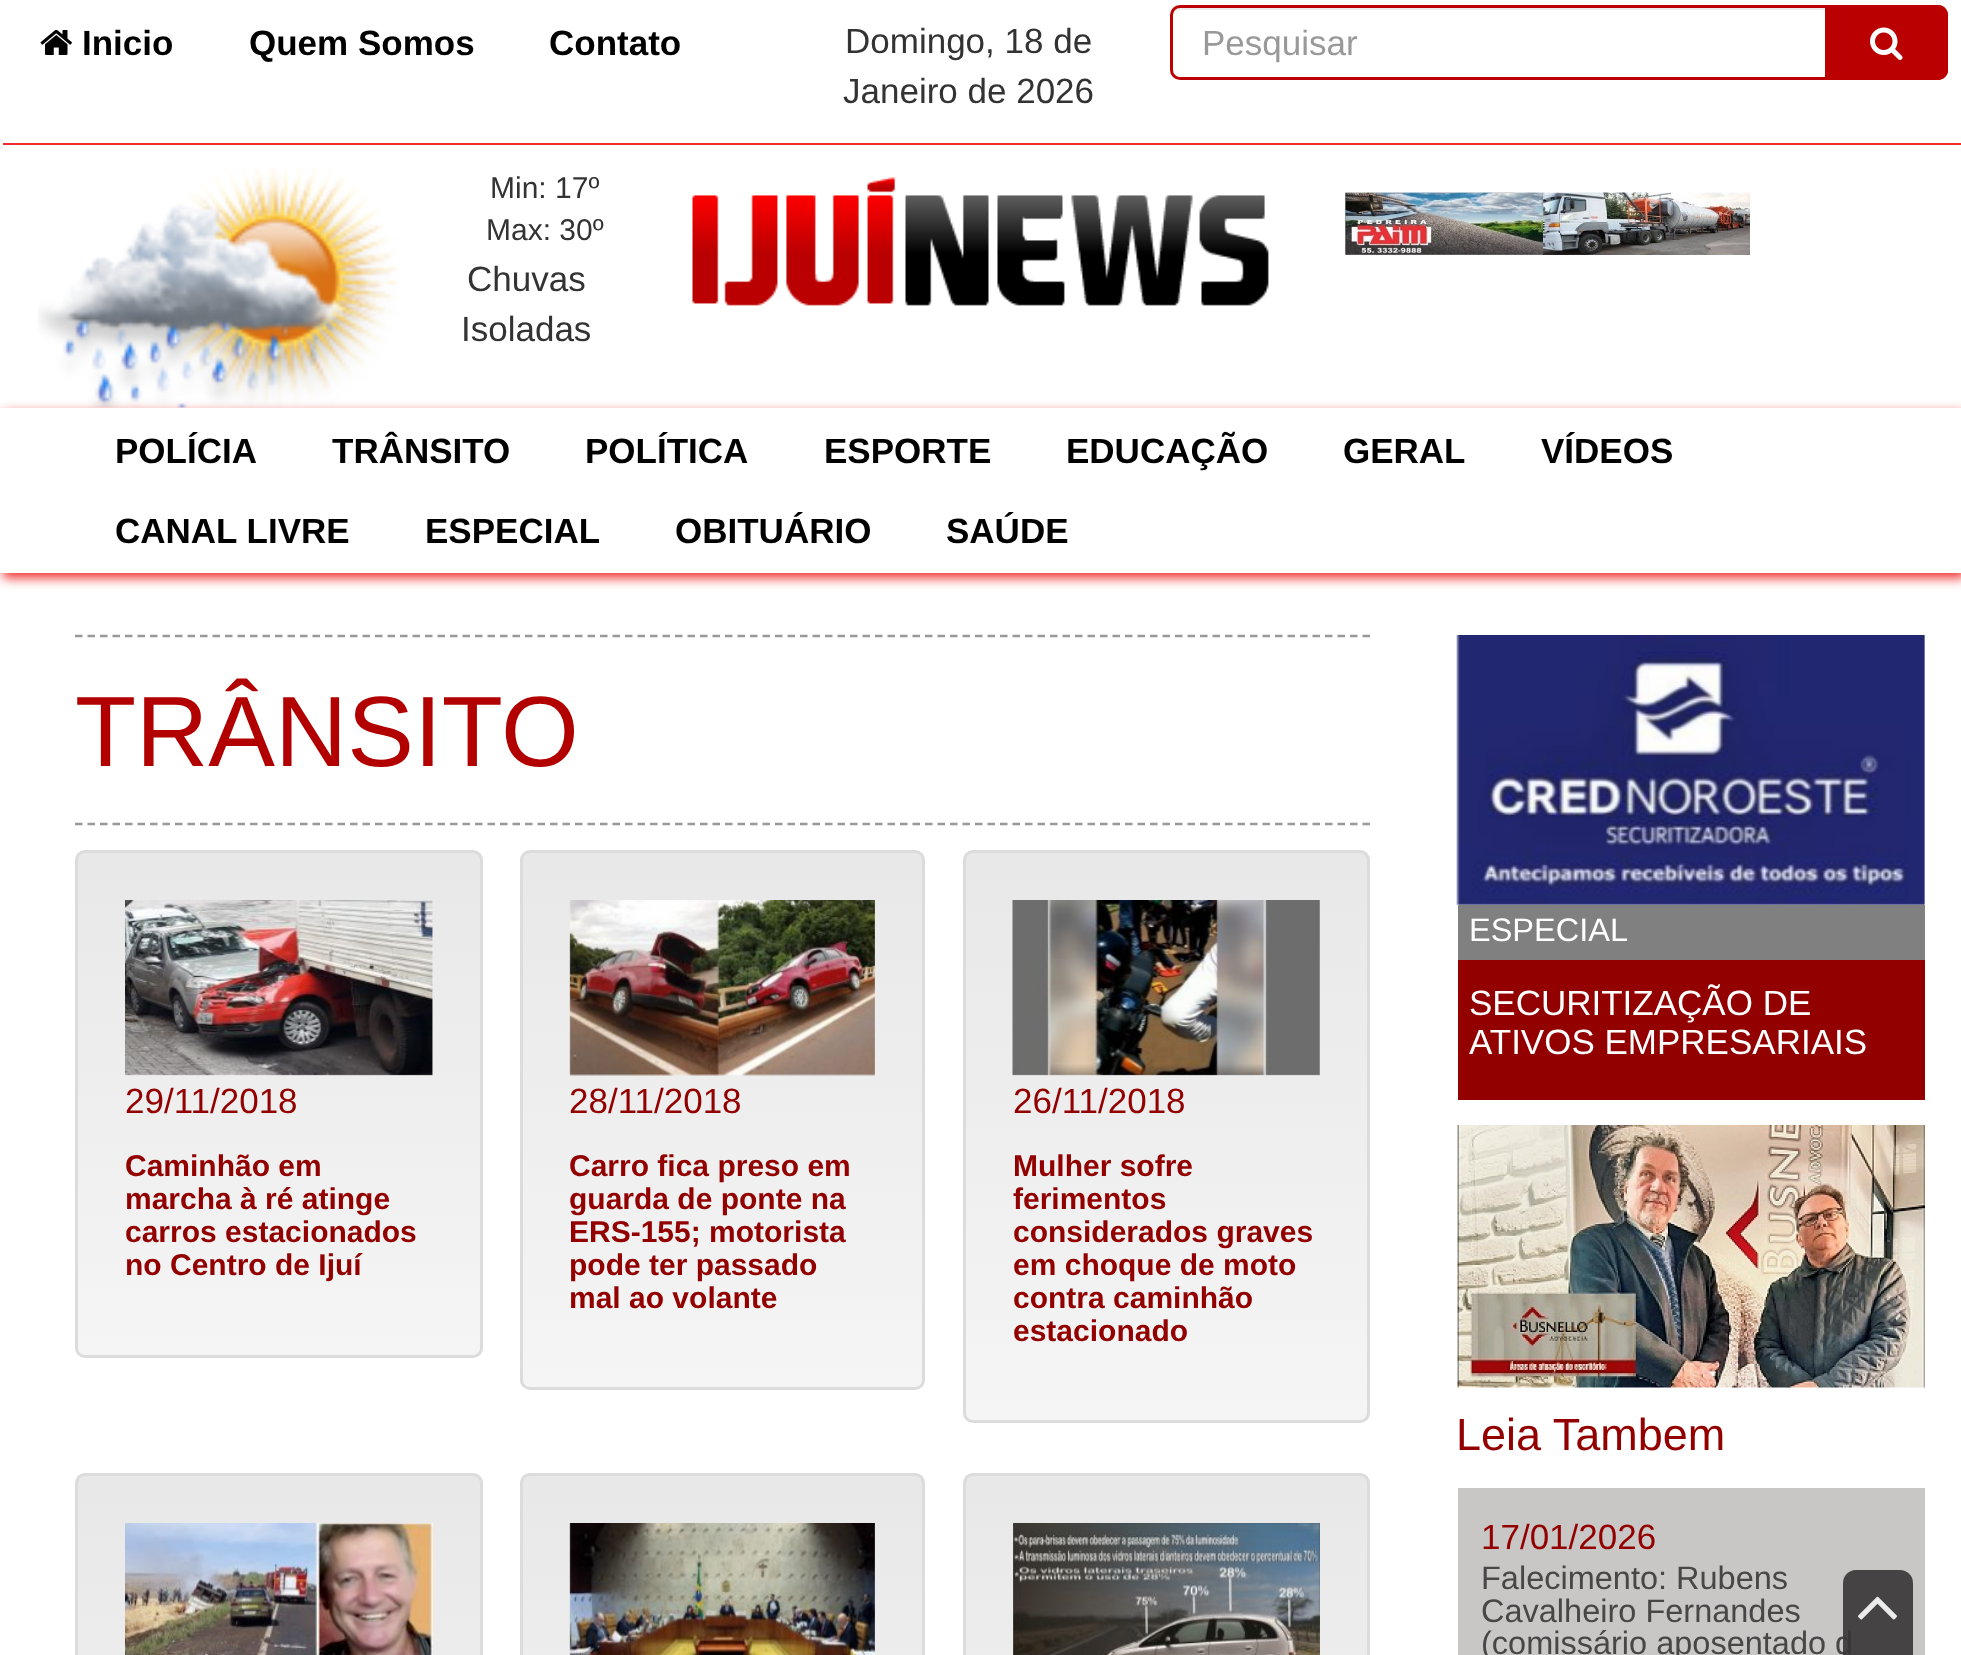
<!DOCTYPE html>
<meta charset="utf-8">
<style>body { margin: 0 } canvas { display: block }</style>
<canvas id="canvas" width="1961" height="1655"></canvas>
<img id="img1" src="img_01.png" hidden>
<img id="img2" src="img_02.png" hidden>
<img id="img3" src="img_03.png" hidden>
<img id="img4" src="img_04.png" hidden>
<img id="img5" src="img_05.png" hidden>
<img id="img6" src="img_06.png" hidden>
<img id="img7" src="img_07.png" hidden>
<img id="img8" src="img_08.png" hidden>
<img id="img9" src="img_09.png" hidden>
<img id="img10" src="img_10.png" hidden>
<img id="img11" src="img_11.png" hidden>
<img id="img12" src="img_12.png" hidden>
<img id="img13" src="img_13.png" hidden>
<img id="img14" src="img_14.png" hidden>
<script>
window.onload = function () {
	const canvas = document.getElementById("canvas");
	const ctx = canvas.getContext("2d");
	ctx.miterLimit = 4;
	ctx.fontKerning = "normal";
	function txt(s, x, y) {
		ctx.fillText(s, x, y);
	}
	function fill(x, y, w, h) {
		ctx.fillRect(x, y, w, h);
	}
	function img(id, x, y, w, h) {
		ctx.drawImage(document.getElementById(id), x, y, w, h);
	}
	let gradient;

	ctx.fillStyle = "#FFFFFF";
	fill(0, 0, 1961, 1655);
	ctx.fillStyle = "#EF2C2C";
	ctx.beginPath();
	ctx.moveTo(3, 142);
	ctx.lineTo(3, 145);
	ctx.lineTo(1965, 145);
	ctx.lineTo(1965, 3);
	ctx.lineTo(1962, 3);
	ctx.lineTo(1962, 142);
	ctx.closePath();
	ctx.fill();
	ctx.fillStyle = "#FFFFFF";
	fill(3, 142, 1958, 1);
	img("img1", 40, 29, 32, 26);
	ctx.fillStyle = "#ECECEC";
	ctx.beginPath();
	ctx.moveTo(1180, 10);
	ctx.lineTo(1825, 10);
	ctx.lineTo(1825, 8);
	ctx.lineTo(1181, 8);
	ctx.bezierCurveTo(1178, 8, 1175, 10, 1173, 13);
	ctx.bezierCurveTo(1175, 11, 1178, 10, 1180, 10);
	ctx.closePath();
	ctx.fill();
	ctx.beginPath();
	ctx.roundRect(1171.5, 6.5, 655, 72, [8.5, 0, 0, 8.5]);
	ctx.strokeStyle = "#BA0000";
	ctx.lineWidth = 3;
	ctx.stroke();
	ctx.fillStyle = "#BA0000";
	ctx.beginPath();
	ctx.roundRect(1828, 5, 120, 75, [0, 10, 10, 0]);
	ctx.fill();
	ctx.beginPath();
	ctx.moveTo(1828, 5);
	ctx.lineTo(1938, 5);
	ctx.bezierCurveTo(1943, 5, 1948, 9, 1948, 15);
	ctx.lineTo(1948, 70);
	ctx.bezierCurveTo(1948, 76, 1943, 80, 1938, 80);
	ctx.lineTo(1828, 80);
	ctx.closePath();
	ctx.moveTo(1828, 8);
	ctx.lineTo(1938, 8);
	ctx.bezierCurveTo(1942, 8, 1945, 11, 1945, 15);
	ctx.lineTo(1945, 70);
	ctx.bezierCurveTo(1945, 74, 1942, 78, 1938, 78);
	ctx.lineTo(1828, 78);
	ctx.closePath();
	ctx.fill("evenodd");
	img("img2", 1870, 27, 33, 33);
	img("img3", 38, 167, 360, 241);
	img("img4", 692, 177, 577, 129);
	img("img5", 1345, 192, 405, 63);
	ctx.fillStyle = "rgba(236, 10, 10, 0.86)";
	ctx.filter = "blur(6px)";
	ctx.beginPath();
	ctx.rect(3, 413, 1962, 165);
	ctx.fill();
	ctx.filter = "none";
	ctx.fillStyle = "#FFFFFF";
	fill(0, 408, 1961, 165);
	ctx.beginPath();
	ctx.moveTo(75, 636);
	ctx.lineTo(1370, 636);
	ctx.strokeStyle = "#999999";
	ctx.lineWidth = 2.5;
	ctx.setLineDash([7.5, 5]);
	ctx.stroke();
	ctx.beginPath();
	ctx.moveTo(75, 824);
	ctx.lineTo(1370, 824);
	ctx.stroke();
	ctx.save();
	ctx.beginPath();
	ctx.roundRect(75, 850, 408, 508, 10);
	ctx.clip();
	gradient = ctx.createLinearGradient(279, 853, 279, 1355);
	gradient.addColorStop(0, "#E8E8E8");
	gradient.addColorStop(1, "#F5F5F5");
	ctx.fillStyle = gradient;
	fill(75, 853, 408, 502);
	ctx.restore();
	ctx.beginPath();
	ctx.roundRect(76.5, 851.5, 405, 505, 8.5);
	ctx.strokeStyle = "#DCDCDC";
	ctx.lineWidth = 3;
	ctx.setLineDash([]);
	ctx.stroke();
	img("img6", 125, 900, 308, 176);
	ctx.save();
	ctx.beginPath();
	ctx.roundRect(520, 850, 405, 540, 10);
	ctx.clip();
	gradient = ctx.createLinearGradient(723, 853, 723, 1388);
	gradient.addColorStop(0, "#E8E8E8");
	gradient.addColorStop(1, "#F5F5F5");
	ctx.fillStyle = gradient;
	fill(520, 853, 405, 535);
	ctx.restore();
	ctx.beginPath();
	ctx.roundRect(521.5, 851.5, 402, 537, 8.5);
	ctx.stroke();
	img("img7", 569, 900, 306, 176);
	ctx.save();
	ctx.beginPath();
	ctx.roundRect(963, 850, 407, 573, 10);
	ctx.clip();
	gradient = ctx.createLinearGradient(1166, 853, 1166, 1420);
	gradient.addColorStop(0, "#E8E8E8");
	gradient.addColorStop(1, "#F5F5F5");
	ctx.fillStyle = gradient;
	fill(963, 853, 407, 567);
	ctx.restore();
	ctx.beginPath();
	ctx.roundRect(964.5, 851.5, 404, 570, 8.5);
	ctx.stroke();
	img("img8", 1012, 900, 308, 176);
	ctx.save();
	ctx.beginPath();
	ctx.roundRect(75, 1473, 408, 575, 10);
	ctx.clip();
	gradient = ctx.createLinearGradient(279, 1475, 279, 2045);
	gradient.addColorStop(0, "#E8E8E8");
	gradient.addColorStop(1, "#F5F5F5");
	ctx.fillStyle = gradient;
	fill(75, 1475, 408, 180);
	ctx.restore();
	ctx.beginPath();
	ctx.roundRect(76.5, 1474.5, 405, 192, 8.5);
	ctx.stroke();
	img("img9", 125, 1523, 308, 132);
	ctx.save();
	ctx.beginPath();
	ctx.roundRect(520, 1473, 405, 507, 10);
	ctx.clip();
	gradient = ctx.createLinearGradient(723, 1475, 723, 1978);
	gradient.addColorStop(0, "#E8E8E8");
	gradient.addColorStop(1, "#F5F5F5");
	ctx.fillStyle = gradient;
	fill(520, 1475, 405, 180);
	ctx.restore();
	ctx.beginPath();
	ctx.roundRect(521.5, 1474.5, 402, 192, 8.5);
	ctx.stroke();
	img("img10", 569, 1523, 306, 132);
	ctx.save();
	ctx.beginPath();
	ctx.roundRect(963, 1473, 407, 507, 10);
	ctx.clip();
	gradient = ctx.createLinearGradient(1166, 1475, 1166, 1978);
	gradient.addColorStop(0, "#E8E8E8");
	gradient.addColorStop(1, "#F5F5F5");
	ctx.fillStyle = gradient;
	fill(963, 1475, 407, 180);
	ctx.restore();
	ctx.beginPath();
	ctx.roundRect(964.5, 1474.5, 404, 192, 8.5);
	ctx.stroke();
	img("img11", 1013, 1523, 307, 132);
	img("img12", 1456, 635, 469, 270);
	ctx.fillStyle = "#920000";
	fill(1458, 960, 467, 140);
	ctx.fillStyle = "#808080";
	fill(1458, 905, 467, 55);
	img("img13", 1457, 1125, 468, 263);
	ctx.fillStyle = "#C9C6C6";
	fill(1458, 1488, 467, 167);
	ctx.font = "bold 35px Liberation Sans";
	ctx.fillStyle = "#000000";
	txt("Inicio", 82, 55);
	txt("Quem Somos", 249, 55);
	txt("Contato", 549, 55);
	ctx.font = "35px Liberation Sans";
	ctx.fillStyle = "#333333";
	txt("Domingo, 18 de", 845, 53);
	txt("Janeiro de 2026", 843, 103);
	ctx.fillStyle = "#999999";
	txt("Pesquisar", 1202, 55);
	ctx.font = "30px Liberation Sans";
	ctx.fillStyle = "#333333";
	txt("Min: 17º", 490, 198);
	txt("Max: 30º", 486, 240);
	ctx.font = "35px Liberation Sans";
	txt("Chuvas", 467, 291);
	txt("Isoladas", 461, 341);
	ctx.font = "bold 35px Liberation Sans";
	ctx.fillStyle = "#000000";
	txt("POLÍCIA", 115, 463);
	txt("TRÂNSITO", 332, 463);
	txt("POLÍTICA", 585, 463);
	txt("ESPORTE", 824, 463);
	txt("EDUCAÇÃO", 1066, 463);
	txt("GERAL", 1343, 463);
	txt("VÍDEOS", 1541, 463);
	txt("CANAL LIVRE", 115, 543);
	txt("ESPECIAL", 425, 543);
	txt("OBITUÁRIO", 675, 543);
	txt("SAÚDE", 946, 543);
	ctx.font = "100px Liberation Sans";
	ctx.fillStyle = "#B20000";
	txt("TRÂNSITO", 75, 766);
	ctx.font = "35px Liberation Sans";
	ctx.fillStyle = "#920000";
	txt("29/11/2018", 125, 1113);
	ctx.font = "bold 30px Liberation Sans";
	txt("Caminhão em", 125, 1176);
	txt("marcha à ré atinge", 125, 1209);
	txt("carros estacionados", 125, 1242);
	txt("no Centro de Ijuí", 125, 1275);
	ctx.font = "35px Liberation Sans";
	txt("28/11/2018", 569, 1113);
	ctx.font = "bold 30px Liberation Sans";
	txt("Carro fica preso em", 569, 1176);
	txt("guarda de ponte na", 569, 1209);
	txt("ERS-155; motorista", 569, 1242);
	txt("pode ter passado", 569, 1275);
	txt("mal ao volante", 569, 1308);
	ctx.font = "35px Liberation Sans";
	txt("26/11/2018", 1013, 1113);
	ctx.font = "bold 30px Liberation Sans";
	txt("Mulher sofre", 1013, 1176);
	txt("ferimentos", 1013, 1209);
	txt("considerados graves", 1013, 1242);
	txt("em choque de moto", 1013, 1275);
	txt("contra caminhão", 1013, 1308);
	txt("estacionado", 1013, 1341);
	ctx.font = "32.5px Liberation Sans";
	ctx.fillStyle = "#FFFFFF";
	txt("ESPECIAL", 1469, 941);
	ctx.font = "35px Liberation Sans";
	txt("SECURITIZAÇÃO DE", 1469, 1015);
	txt("ATIVOS EMPRESARIAIS", 1469, 1054);
	ctx.font = "45px Liberation Sans";
	ctx.fillStyle = "#920000";
	txt("Leia Tambem", 1456, 1450);
	ctx.font = "35px Liberation Sans";
	txt("17/01/2026", 1481, 1549);
	ctx.font = "32.5px Liberation Sans";
	ctx.fillStyle = "#474747";
	txt("Falecimento: Rubens", 1481, 1589);
	txt("Cavalheiro Fernandes", 1481, 1622);
	txt("(comissário aposentado d", 1481, 1654);
	ctx.fillStyle = "rgba(54, 52, 52, 0.9)";
	ctx.beginPath();
	ctx.roundRect(1843, 1570, 70, 85, [13, 13, 0, 0]);
	ctx.fill();
	img("img14", 1858, 1596, 39, 24);
};
</script>
